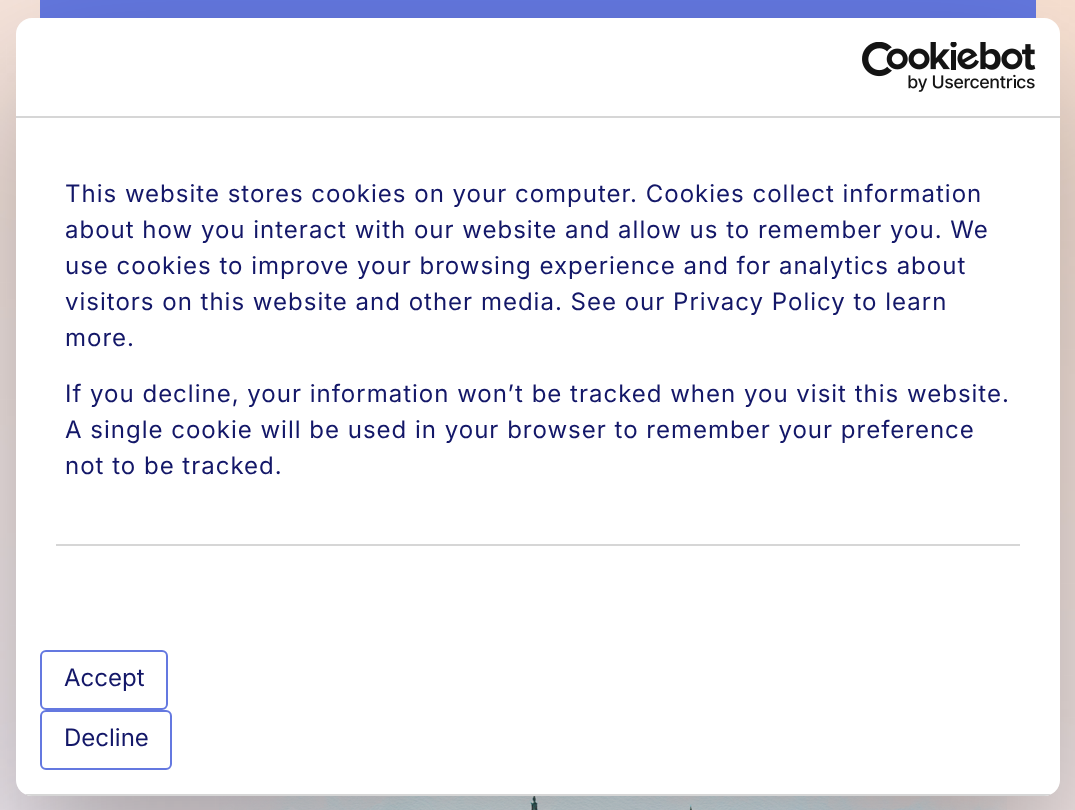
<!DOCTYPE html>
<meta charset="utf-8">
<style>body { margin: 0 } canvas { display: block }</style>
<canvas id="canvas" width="1075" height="810"></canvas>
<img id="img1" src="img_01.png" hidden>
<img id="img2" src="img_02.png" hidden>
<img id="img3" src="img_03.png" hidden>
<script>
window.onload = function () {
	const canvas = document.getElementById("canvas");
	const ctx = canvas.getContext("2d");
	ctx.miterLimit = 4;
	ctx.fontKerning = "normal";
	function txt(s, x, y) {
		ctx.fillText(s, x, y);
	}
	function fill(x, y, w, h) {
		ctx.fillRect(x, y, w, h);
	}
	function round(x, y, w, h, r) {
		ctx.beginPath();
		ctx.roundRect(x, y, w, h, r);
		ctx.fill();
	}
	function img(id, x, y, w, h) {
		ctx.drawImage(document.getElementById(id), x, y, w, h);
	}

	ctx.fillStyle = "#FFFFFF";
	fill(0, 0, 1075, 810);
	img("img1", 0, 0, 1075, 810);
	ctx.fillStyle = "#6478E0";
	fill(40, 0, 996, 18);
	img("img2", 219, 796, 788, 14);
	ctx.fillStyle = "rgba(0, 0, 0, 0.3)";
	ctx.filter = "blur(68px)";
	ctx.beginPath();
	ctx.roundRect(16, 82, 1044, 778, 16);
	ctx.fill();
	ctx.filter = "none";
	ctx.fillStyle = "#FFFFFF";
	round(16, 18, 1044, 778, 16);
	ctx.fillStyle = "#D6D6D6";
	fill(16, 116, 1044, 2);
	img("img3", 862, 42, 174, 50);
	fill(56, 544, 964, 2);
	ctx.save();
	ctx.beginPath();
	ctx.roundRect(16, 18, 1044, 778, 16);
	ctx.clip();
	fill(16, 794, 1044, 2);
	ctx.restore();
	ctx.beginPath();
	ctx.roundRect(41, 651, 126, 58, 5);
	ctx.strokeStyle = "#6478E0";
	ctx.lineWidth = 2;
	ctx.stroke();
	ctx.beginPath();
	ctx.roundRect(41, 711, 130, 58, 5);
	ctx.stroke();
	ctx.letterSpacing = "1px";
	ctx.font = "24px Inter";
	ctx.fillStyle = "#131768";
	txt("This website stores cookies on your computer. Cookies collect information", 65, 202);
	txt("about how you interact with our website and allow us to remember you. We", 65, 238);
	txt("use cookies to improve your browsing experience and for analytics about", 65, 274);
	txt("visitors on this website and other media. See our Privacy Policy to learn", 65, 310);
	txt("more.", 65, 346);
	txt("If you decline, your information won’t be tracked when you visit this website.", 65, 402);
	txt("A single cookie will be used in your browser to remember your preference", 65, 438);
	txt("not to be tracked.", 65, 474);
	ctx.letterSpacing = "0px";
	txt("Accept", 64, 686);
	txt("Decline", 64, 746);
};
</script>
